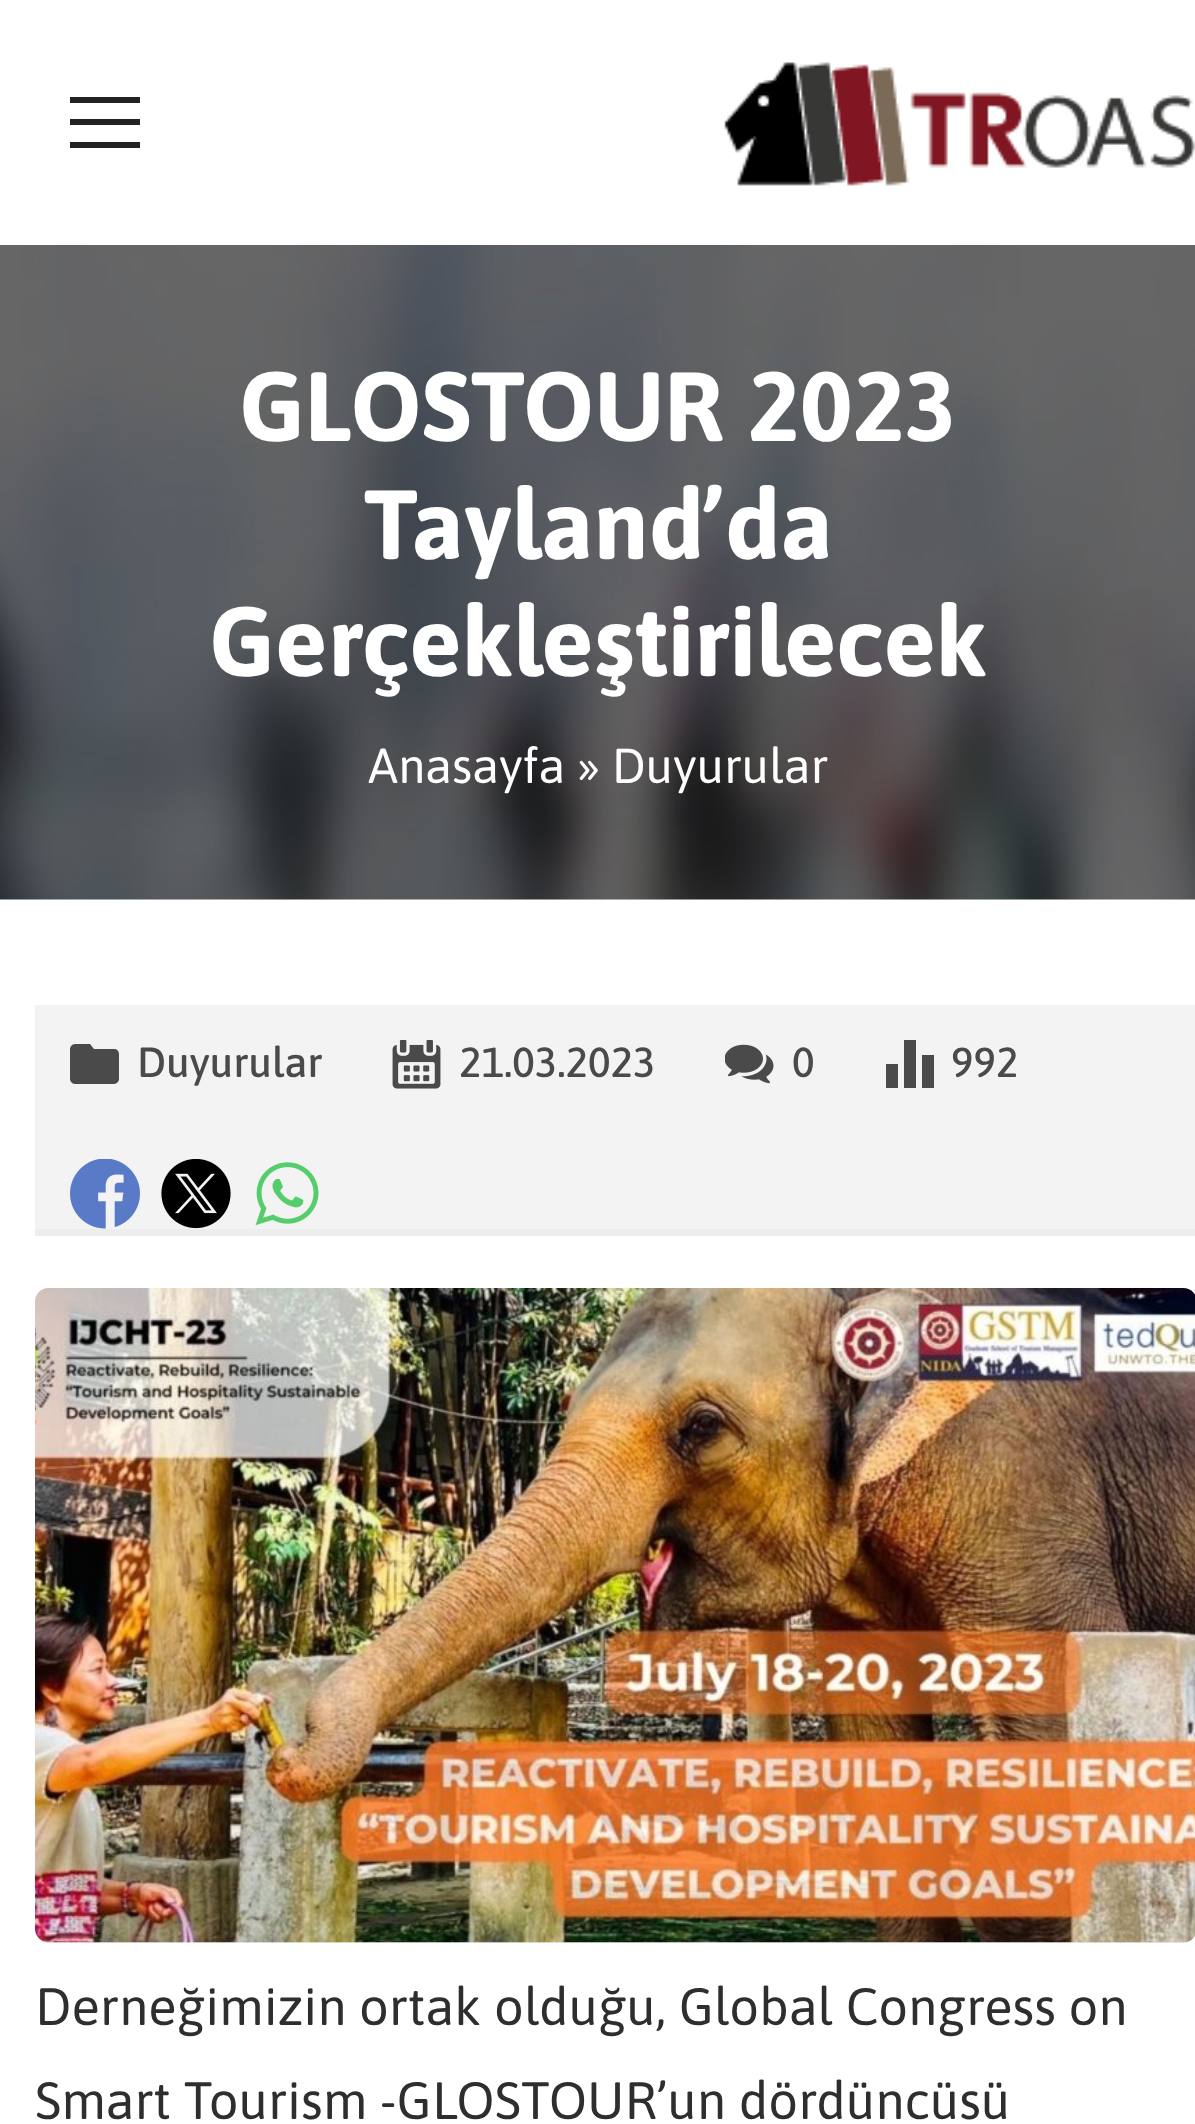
<!DOCTYPE html>
<meta charset="utf-8">
<style>body { margin: 0 } canvas { display: block }</style>
<canvas id="canvas" width="1195" height="2124"></canvas>
<img id="img1" src="img_01.png" hidden>
<img id="img2" src="img_02.png" hidden>
<img id="img3" src="img_03.png" hidden>
<img id="img4" src="img_04.png" hidden>
<img id="img5" src="img_05.png" hidden>
<img id="img6" src="img_06.png" hidden>
<img id="img7" src="img_07.png" hidden>
<img id="img8" src="img_08.png" hidden>
<img id="img9" src="img_09.png" hidden>
<script>
window.onload = function () {
	const canvas = document.getElementById("canvas");
	const ctx = canvas.getContext("2d");
	ctx.miterLimit = 4;
	ctx.fontKerning = "normal";
	function txt(s, x, y) {
		ctx.fillText(s, x, y);
	}
	function fill(x, y, w, h) {
		ctx.fillRect(x, y, w, h);
	}
	function round(x, y, w, h, r) {
		ctx.beginPath();
		ctx.roundRect(x, y, w, h, r);
		ctx.fill();
	}
	function img(id, x, y, w, h) {
		ctx.drawImage(document.getElementById(id), x, y, w, h);
	}

	ctx.fillStyle = "#FFFFFF";
	fill(0, 0, 1195, 2124);
	ctx.fillStyle = "#222222";
	ctx.beginPath();
	ctx.moveTo(70, 97);
	ctx.lineTo(140, 97);
	ctx.lineTo(140, 103);
	ctx.lineTo(70, 103);
	ctx.closePath();
	ctx.moveTo(70, 119);
	ctx.lineTo(140, 119);
	ctx.lineTo(140, 125);
	ctx.lineTo(70, 125);
	ctx.closePath();
	ctx.moveTo(70, 142);
	ctx.lineTo(140, 142);
	ctx.lineTo(140, 148);
	ctx.lineTo(70, 148);
	ctx.closePath();
	ctx.fill();
	img("img1", 724, 62, 471, 124);
	img("img2", 0, 245, 1195, 655);
	ctx.fillStyle = "#F3F3F3";
	fill(35, 1005, 1160, 224);
	ctx.fillStyle = "#EDEDED";
	fill(35, 1229, 1160, 7);
	ctx.fillStyle = "#4A4A4A";
	ctx.beginPath();
	ctx.moveTo(90, 1044);
	ctx.lineTo(75, 1044);
	ctx.bezierCurveTo(72, 1044, 70, 1047, 70, 1049);
	ctx.lineTo(70, 1079);
	ctx.bezierCurveTo(70, 1081, 72, 1084, 75, 1084);
	ctx.lineTo(114, 1084);
	ctx.bezierCurveTo(117, 1084, 119, 1081, 119, 1079);
	ctx.lineTo(119, 1054);
	ctx.bezierCurveTo(119, 1051, 117, 1049, 114, 1049);
	ctx.lineTo(94, 1049);
	ctx.closePath();
	ctx.fill();
	img("img3", 392, 1040, 49, 49);
	img("img4", 725, 1044, 49, 40);
	ctx.beginPath();
	ctx.moveTo(904, 1088);
	ctx.lineTo(916, 1088);
	ctx.lineTo(916, 1040);
	ctx.lineTo(904, 1040);
	ctx.closePath();
	ctx.moveTo(886, 1088);
	ctx.lineTo(898, 1088);
	ctx.lineTo(898, 1064);
	ctx.lineTo(886, 1064);
	ctx.closePath();
	ctx.moveTo(922, 1055);
	ctx.lineTo(922, 1088);
	ctx.lineTo(934, 1088);
	ctx.lineTo(934, 1055);
	ctx.closePath();
	ctx.fill();
	img("img5", 70, 1159, 70, 70);
	img("img6", 161, 1159, 70, 70);
	img("img7", 255, 1162, 64, 64);
	ctx.fillStyle = "#F0F0F0";
	round(35, 1288, 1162, 655, 14);
	img("img8", 35, 1288, 1160, 655);
	img("img9", 35, 1288, 1160, 655);
	ctx.font = "bold 98px Asap";
	ctx.fillStyle = "#FFFFFF";
	txt("GLOSTOUR 2023", 239, 441);
	txt("Tayland’da", 364, 559);
	txt("Gerçekleştirilecek", 209, 676);
	ctx.font = "49px Asap";
	txt("Anasayfa » Duyurular", 368, 783);
	ctx.font = "500 42px Asap";
	ctx.fillStyle = "#4A4A4A";
	txt("Duyurular", 137, 1077);
	txt("21.03.2023", 459, 1077);
	txt("0", 792, 1077);
	txt("992", 951, 1077);
	ctx.font = "52.5px Asap";
	ctx.fillStyle = "#2E2E2E";
	txt("Derneğimizin ortak olduğu, Global Congress on", 35, 2025);
	txt("Smart Tourism -GLOSTOUR’un dördüncüsü", 35, 2119);
};
</script>
